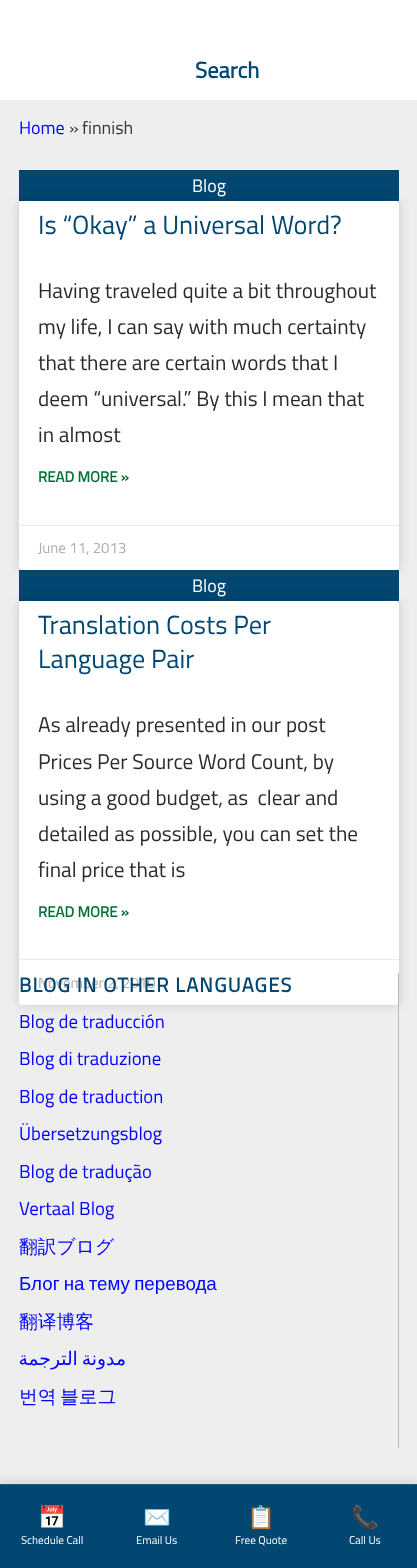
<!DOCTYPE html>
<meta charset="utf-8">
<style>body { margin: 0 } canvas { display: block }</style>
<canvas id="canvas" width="417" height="1568"></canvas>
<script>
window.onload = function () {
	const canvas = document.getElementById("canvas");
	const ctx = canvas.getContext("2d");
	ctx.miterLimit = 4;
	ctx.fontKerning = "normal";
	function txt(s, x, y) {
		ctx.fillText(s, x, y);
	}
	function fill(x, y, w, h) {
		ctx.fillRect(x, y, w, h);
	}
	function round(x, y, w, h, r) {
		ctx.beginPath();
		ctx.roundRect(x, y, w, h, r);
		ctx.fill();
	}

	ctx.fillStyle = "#FFFFFF";
	fill(0, 0, 417, 1568);
	ctx.fillStyle = "#EEEEEE";
	fill(0, 100, 417, 1384);
	ctx.fillStyle = "#024772";
	fill(19, 170, 380, 31);
	ctx.fillStyle = "rgba(0, 0, 0, 0.15)";
	ctx.filter = "blur(6px)";
	ctx.beginPath();
	ctx.roundRect(19, 201, 380, 369, 4);
	ctx.fill();
	ctx.filter = "none";
	ctx.fillStyle = "#FFFFFF";
	round(19, 201, 380, 369, 4);
	ctx.fillStyle = "#EAEAEA";
	fill(19, 525, 380, 1);
	ctx.fillStyle = "#024772";
	fill(19, 570, 380, 31);
	ctx.fillStyle = "rgba(0, 0, 0, 0.15)";
	ctx.filter = "blur(6px)";
	ctx.beginPath();
	ctx.roundRect(19, 601, 380, 404, 4);
	ctx.fill();
	ctx.filter = "none";
	ctx.fillStyle = "#FFFFFF";
	round(19, 601, 380, 404, 4);
	ctx.fillStyle = "#EAEAEA";
	fill(19, 959, 380, 1);
	ctx.fillStyle = "#BABABA";
	fill(398, 973, 1, 475);
	ctx.fillStyle = "rgba(0, 0, 0, 0.1)";
	ctx.filter = "blur(6px)";
	ctx.beginPath();
	ctx.rect(0, 1481, 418, 85);
	ctx.fill();
	ctx.filter = "none";
	ctx.fillStyle = "#024772";
	fill(0, 1485, 417, 83);
	ctx.fillStyle = "#1B5980";
	fill(0, 1484, 417, 1);
	ctx.font = "bold 22.5px Titillium Web";
	ctx.fillStyle = "#024772";
	txt("Search", 195, 78);
	ctx.font = "18px Titillium Web";
	ctx.fillStyle = "#0000FF";
	txt("Home", 19, 134);
	ctx.fillStyle = "#2A2A2A";
	txt("»", 69, 134);
	ctx.fillStyle = "#383838";
	txt("finnish", 82, 134);
	ctx.fillStyle = "#FFFFFF";
	txt("Blog", 192, 192);
	ctx.font = "26.25px Titillium Web";
	ctx.fillStyle = "#024772";
	txt("Is “Okay” a Universal Word?", 38, 234);
	ctx.font = "21.25px Titillium Web";
	ctx.fillStyle = "#2A2A2A";
	txt("Having traveled quite a bit throughout", 38, 298);
	txt("my life, I can say with much certainty", 38, 334);
	txt("that there are certain words that I", 38, 370);
	txt("deem “universal.” By this I mean that", 38, 406);
	txt("in almost", 38, 442);
	ctx.font = "bold 15px Titillium Web";
	ctx.fillStyle = "#016E31";
	txt("READ MORE »", 38, 482);
	ctx.font = "15px Titillium Web";
	ctx.fillStyle = "#ADADAD";
	txt("June 11, 2013", 38, 553);
	ctx.font = "18px Titillium Web";
	ctx.fillStyle = "#FFFFFF";
	txt("Blog", 192, 592);
	ctx.font = "26.25px Titillium Web";
	ctx.fillStyle = "#024772";
	txt("Translation Costs Per", 38, 634);
	txt("Language Pair", 38, 668);
	ctx.font = "21.25px Titillium Web";
	ctx.fillStyle = "#2A2A2A";
	txt("As already presented in our post", 38, 732);
	txt("Prices Per Source Word Count, by", 38, 769);
	txt("using a good budget, as  clear and", 38, 805);
	txt("detailed as possible, you can set the", 38, 841);
	txt("final price that is", 38, 877);
	ctx.font = "bold 15px Titillium Web";
	ctx.fillStyle = "#016E31";
	txt("READ MORE »", 38, 917);
	ctx.font = "15px Titillium Web";
	ctx.fillStyle = "#ADADAD";
	txt("November 2, 2010", 38, 988);
	ctx.letterSpacing = "1.25px";
	ctx.font = "bold 20px Titillium Web";
	ctx.fillStyle = "#024772";
	txt("BLOG IN OTHER LANGUAGES", 19, 992);
	ctx.letterSpacing = "0px";
	ctx.font = "18.75px Titillium Web";
	ctx.fillStyle = "#0000FF";
	txt("Blog de traducción", 19, 1028);
	txt("Blog di traduzione", 19, 1065);
	txt("Blog de traduction", 19, 1103);
	txt("Übersetzungsblog", 19, 1140);
	txt("Blog de tradução", 19, 1178);
	txt("Vertaal Blog", 19, 1215);
	ctx.font = "500 18.75px WenQuanYi Zen Hei";
	txt("翻訳ブログ", 19, 1253);
	ctx.wordSpacing = "-1px";
	ctx.font = "18.75px Liberation Sans";
	txt("Блог на тему перевода", 19, 1290);
	ctx.wordSpacing = "0px";
	ctx.font = "500 18.75px WenQuanYi Zen Hei";
	txt("翻译博客", 19, 1328);
	ctx.wordSpacing = "-2px";
	ctx.direction = "rtl";
	ctx.font = "18.75px DejaVu Sans";
	txt("مدونة الترجمة", 126, 1365);
	ctx.direction = "ltr";
	ctx.font = "500 18.75px WenQuanYi Zen Hei";
	txt("번역 블로그", 19, 1403);
	ctx.wordSpacing = "0px";
	ctx.font = "22.5px Noto Color Emoji";
	ctx.fillStyle = "#2A2A2A";
	txt("📅", 38, 1525);
	ctx.font = "11.25px Titillium Web";
	ctx.fillStyle = "#FFFFFF";
	txt("Schedule Call", 21, 1544);
	ctx.font = "22.5px Noto Color Emoji";
	ctx.fillStyle = "#2A2A2A";
	txt("✉️", 143, 1525);
	ctx.font = "11.25px Titillium Web";
	ctx.fillStyle = "#FFFFFF";
	txt("Email Us", 136, 1544);
	ctx.font = "22.5px Noto Color Emoji";
	ctx.fillStyle = "#2A2A2A";
	txt("📋", 247, 1525);
	ctx.font = "11.25px Titillium Web";
	ctx.fillStyle = "#FFFFFF";
	txt("Free Quote", 235, 1544);
	ctx.font = "22.5px Noto Color Emoji";
	ctx.fillStyle = "#2A2A2A";
	txt("📞", 351, 1525);
	ctx.font = "11.25px Titillium Web";
	ctx.fillStyle = "#FFFFFF";
	txt("Call Us", 349, 1544);
};
</script>
